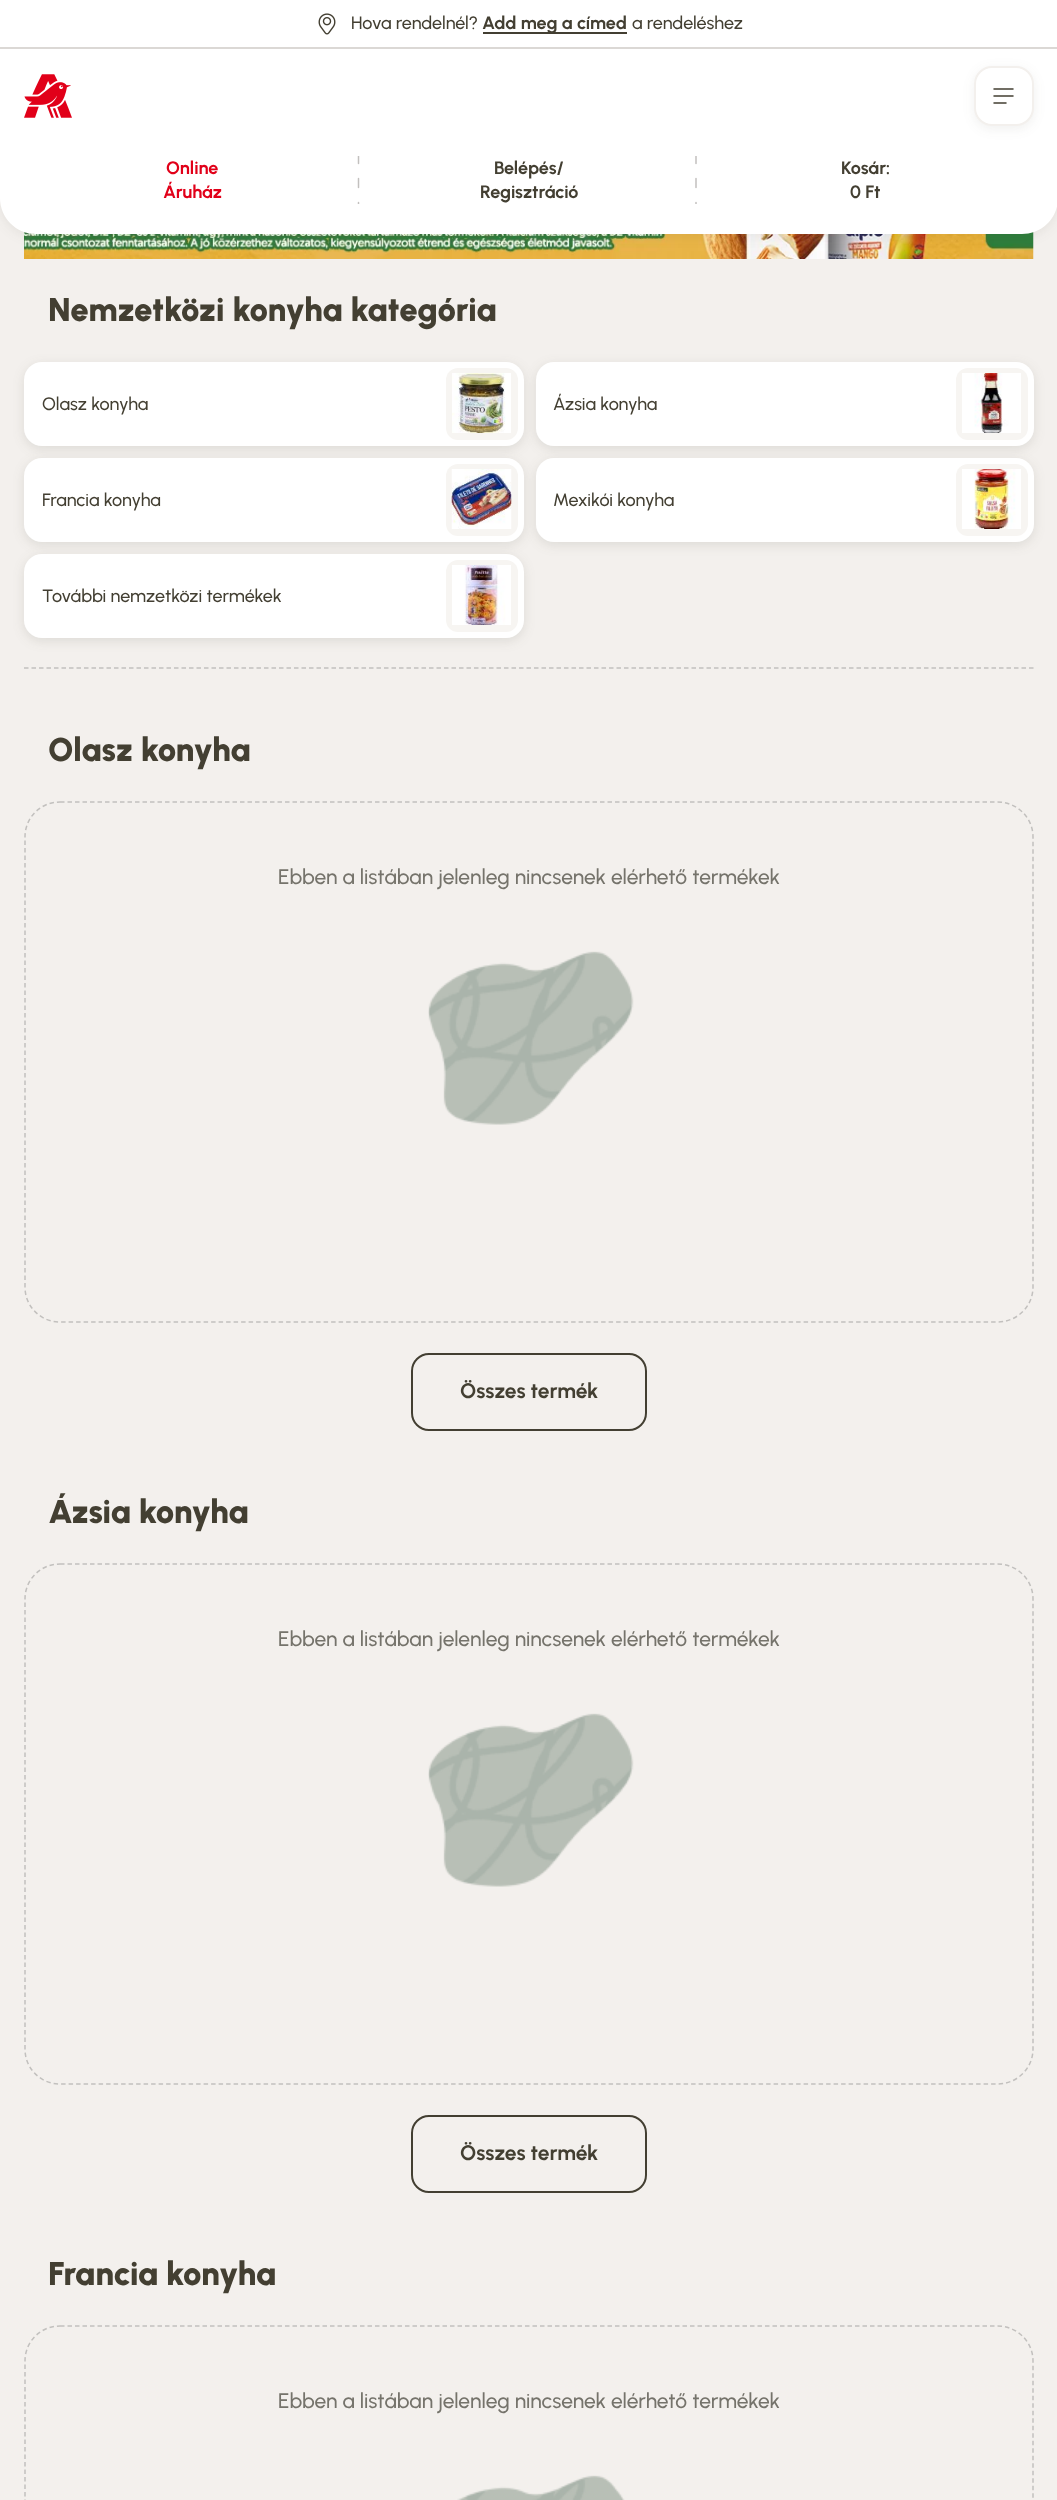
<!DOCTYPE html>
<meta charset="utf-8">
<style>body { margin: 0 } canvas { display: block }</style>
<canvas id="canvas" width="1057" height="2500"></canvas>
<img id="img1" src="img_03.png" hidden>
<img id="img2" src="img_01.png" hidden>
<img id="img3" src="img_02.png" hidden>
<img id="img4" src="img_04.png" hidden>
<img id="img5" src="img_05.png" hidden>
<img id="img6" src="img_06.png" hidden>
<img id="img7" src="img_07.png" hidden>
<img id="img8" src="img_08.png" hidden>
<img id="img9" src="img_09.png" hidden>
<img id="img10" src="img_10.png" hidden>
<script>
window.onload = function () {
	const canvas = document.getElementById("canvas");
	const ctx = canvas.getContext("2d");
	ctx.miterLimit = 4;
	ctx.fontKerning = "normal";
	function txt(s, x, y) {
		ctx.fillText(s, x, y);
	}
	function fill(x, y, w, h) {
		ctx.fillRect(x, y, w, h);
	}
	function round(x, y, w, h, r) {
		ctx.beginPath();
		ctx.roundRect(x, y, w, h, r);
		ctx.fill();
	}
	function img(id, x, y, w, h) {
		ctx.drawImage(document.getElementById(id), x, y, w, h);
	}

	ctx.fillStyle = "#F3F0ED";
	fill(0, 0, 1057, 2500);
	img("img1", 24, 231, 1010, 28);
	ctx.fillStyle = "rgba(67, 63, 50, 0.08)";
	ctx.filter = "blur(6px)";
	ctx.beginPath();
	ctx.roundRect(0, 3, 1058, 234, 36);
	ctx.fill();
	ctx.filter = "none";
	ctx.fillStyle = "#FFFFFF";
	ctx.beginPath();
	ctx.moveTo(0, 0);
	ctx.lineTo(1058, 0);
	ctx.lineTo(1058, 198);
	ctx.bezierCurveTo(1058, 218, 1042, 234, 1022, 234);
	ctx.lineTo(36, 234);
	ctx.bezierCurveTo(16, 234, 0, 218, 0, 198);
	ctx.closePath();
	ctx.fill();
	ctx.fillStyle = "#DBD8D5";
	fill(0, 47, 1057, 2);
	img("img2", 318, 13, 18, 22);
	ctx.fillStyle = "#433F32";
	fill(483, 32, 144, 2);
	img("img3", 24, 74, 48, 44);
	ctx.fillStyle = "rgba(67, 63, 50, 0.08)";
	ctx.filter = "blur(6px)";
	ctx.beginPath();
	ctx.roundRect(974, 69, 60, 60, 18);
	ctx.fill();
	ctx.filter = "none";
	ctx.fillStyle = "#FFFFFF";
	ctx.beginPath();
	ctx.roundRect(975, 67, 58, 58, 17);
	ctx.fill();
	ctx.strokeStyle = "#F3F0ED";
	ctx.lineWidth = 2;
	ctx.stroke();
	ctx.beginPath();
	ctx.moveTo(994, 96);
	ctx.lineTo(1013, 96);
	ctx.moveTo(994, 89);
	ctx.lineTo(1013, 89);
	ctx.moveTo(994, 103);
	ctx.lineTo(1006, 103);
	ctx.strokeStyle = "#433F32";
	ctx.lineWidth = 1.5;
	ctx.lineCap = "round";
	ctx.lineJoin = "round";
	ctx.stroke();
	ctx.save();
	ctx.beginPath();
	ctx.rect(357, 156, 3, 48);
	ctx.clip();
	ctx.beginPath();
	ctx.moveTo(358.5, 154.5);
	ctx.lineTo(358.5, 163.5);
	ctx.moveTo(358.5, 178.5);
	ctx.lineTo(358.5, 187.5);
	ctx.moveTo(358.5, 202.5);
	ctx.lineTo(358.5, 204);
	ctx.strokeStyle = "#C2C0BE";
	ctx.lineJoin = "miter";
	ctx.stroke();
	ctx.restore();
	ctx.save();
	ctx.beginPath();
	ctx.rect(695, 156, 3, 48);
	ctx.clip();
	ctx.beginPath();
	ctx.moveTo(696, 154.5);
	ctx.lineTo(696, 163.5);
	ctx.moveTo(696, 178.5);
	ctx.lineTo(696, 187.5);
	ctx.moveTo(696, 202.5);
	ctx.lineTo(696, 204);
	ctx.strokeStyle = "#C2C0BE";
	ctx.lineJoin = "miter";
	ctx.stroke();
	ctx.restore();
	ctx.fillStyle = "rgba(67, 63, 50, 0.12)";
	ctx.filter = "blur(6px)";
	ctx.beginPath();
	ctx.roundRect(24, 365, 500, 84, 18);
	ctx.fill();
	ctx.filter = "none";
	ctx.fillStyle = "#FFFFFF";
	round(24, 362, 500, 84, 18);
	ctx.fillStyle = "rgba(67, 63, 50, 0.12)";
	ctx.filter = "blur(6px)";
	ctx.beginPath();
	ctx.roundRect(536, 365, 498, 84, 18);
	ctx.fill();
	ctx.filter = "none";
	ctx.fillStyle = "#F7F5F2";
	round(446, 368, 72, 72, 12);
	img("img4", 452, 373, 59, 60);
	ctx.fillStyle = "#FFFFFF";
	round(536, 362, 498, 84, 18);
	ctx.fillStyle = "#F7F5F2";
	round(956, 368, 72, 72, 12);
	img("img5", 962, 373, 59, 60);
	ctx.fillStyle = "rgba(67, 63, 50, 0.12)";
	ctx.filter = "blur(6px)";
	ctx.beginPath();
	ctx.roundRect(24, 461, 500, 84, 18);
	ctx.fill();
	ctx.filter = "none";
	ctx.fillStyle = "#FFFFFF";
	round(24, 458, 500, 84, 18);
	ctx.fillStyle = "rgba(67, 63, 50, 0.12)";
	ctx.filter = "blur(6px)";
	ctx.beginPath();
	ctx.roundRect(536, 461, 498, 84, 18);
	ctx.fill();
	ctx.filter = "none";
	ctx.fillStyle = "#F7F5F2";
	round(446, 464, 72, 72, 12);
	img("img6", 451, 469, 61, 60);
	ctx.fillStyle = "#FFFFFF";
	round(536, 458, 498, 84, 18);
	ctx.fillStyle = "#F7F5F2";
	round(956, 464, 72, 72, 12);
	img("img7", 962, 469, 59, 60);
	ctx.fillStyle = "rgba(67, 63, 50, 0.12)";
	ctx.filter = "blur(6px)";
	ctx.beginPath();
	ctx.roundRect(24, 557, 500, 84, 18);
	ctx.fill();
	ctx.filter = "none";
	ctx.fillStyle = "#FFFFFF";
	round(24, 554, 500, 84, 18);
	ctx.fillStyle = "#F7F5F2";
	round(446, 560, 72, 72, 12);
	img("img8", 452, 565, 59, 60);
	ctx.beginPath();
	ctx.moveTo(24, 668);
	ctx.lineTo(1033.5, 668);
	ctx.strokeStyle = "#C2C0BE";
	ctx.lineCap = "butt";
	ctx.lineJoin = "miter";
	ctx.setLineDash([4.5, 3]);
	ctx.stroke();
	ctx.beginPath();
	ctx.moveTo(60, 802);
	ctx.lineTo(997.5, 802);
	ctx.bezierCurveTo(1017, 802, 1033, 817.5, 1033, 837);
	ctx.lineTo(1033, 1287);
	ctx.bezierCurveTo(1033, 1306.5, 1017, 1322, 997.5, 1322);
	ctx.lineTo(60, 1322);
	ctx.bezierCurveTo(40.5, 1322, 25, 1306.5, 25, 1287);
	ctx.lineTo(25, 837);
	ctx.bezierCurveTo(25, 817.5, 40.5, 802, 60, 802);
	ctx.closePath();
	ctx.stroke();
	img("img9", 428, 951, 206, 174);
	ctx.beginPath();
	ctx.roundRect(412, 1354, 234, 76, 17);
	ctx.strokeStyle = "#433F32";
	ctx.lineWidth = 2;
	ctx.setLineDash([]);
	ctx.stroke();
	ctx.beginPath();
	ctx.moveTo(60, 1564);
	ctx.lineTo(997.5, 1564);
	ctx.bezierCurveTo(1017, 1564, 1033, 1579.5, 1033, 1599);
	ctx.lineTo(1033, 2049);
	ctx.bezierCurveTo(1033, 2068.5, 1017, 2084, 997.5, 2084);
	ctx.lineTo(60, 2084);
	ctx.bezierCurveTo(40.5, 2084, 25, 2068.5, 25, 2049);
	ctx.lineTo(25, 1599);
	ctx.bezierCurveTo(25, 1579.5, 40.5, 1564, 60, 1564);
	ctx.closePath();
	ctx.strokeStyle = "#C2C0BE";
	ctx.lineWidth = 1.5;
	ctx.setLineDash([4.5, 3]);
	ctx.stroke();
	img("img9", 428, 1713, 206, 174);
	ctx.beginPath();
	ctx.roundRect(412, 2116, 234, 76, 17);
	ctx.strokeStyle = "#433F32";
	ctx.lineWidth = 2;
	ctx.setLineDash([]);
	ctx.stroke();
	ctx.beginPath();
	ctx.moveTo(60, 2326);
	ctx.lineTo(997.5, 2326);
	ctx.bezierCurveTo(1017, 2326, 1033, 2341.5, 1033, 2361);
	ctx.lineTo(1033, 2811);
	ctx.bezierCurveTo(1033, 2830.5, 1017, 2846, 997.5, 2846);
	ctx.lineTo(60, 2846);
	ctx.bezierCurveTo(40.5, 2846, 25, 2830.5, 25, 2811);
	ctx.lineTo(25, 2361);
	ctx.bezierCurveTo(25, 2341.5, 40.5, 2326, 60, 2326);
	ctx.closePath();
	ctx.strokeStyle = "#C2C0BE";
	ctx.lineWidth = 1.5;
	ctx.setLineDash([4.5, 3]);
	ctx.stroke();
	img("img10", 457, 2475, 168, 25);
	ctx.font = "500 18px Urbanist";
	ctx.fillStyle = "#433F32";
	txt("Hova rendelnél?", 351, 29);
	ctx.font = "bold 18px Urbanist";
	txt("Add meg a címed", 482, 29);
	ctx.font = "500 18px Urbanist";
	txt("a rendeléshez", 632, 29);
	ctx.font = "bold 18px Urbanist";
	ctx.fillStyle = "#E10019";
	txt("Online", 166, 174);
	txt("Áruház", 163, 198);
	ctx.fillStyle = "#433F32";
	txt("Belépés/", 494, 174);
	txt("Regisztráció", 480, 198);
	txt("Kosár:", 841, 174);
	txt("0 Ft", 850, 198);
	ctx.font = "900 33px Urbanist";
	txt("Nemzetközi konyha kategória", 48, 321);
	ctx.font = "500 18px Urbanist";
	txt("Olasz konyha", 42, 410);
	txt("Ázsia konyha", 553, 410);
	txt("Francia konyha", 42, 506);
	txt("Mexikói konyha", 553, 506);
	txt("További nemzetközi termékek", 42, 602);
	ctx.font = "900 33px Urbanist";
	txt("Olasz konyha", 48, 761);
	ctx.font = "500 21px Urbanist";
	ctx.fillStyle = "#75736B";
	txt("Ebben a listában jelenleg nincsenek elérhető termékek", 278, 884);
	ctx.font = "bold 21px Urbanist";
	ctx.fillStyle = "#433F32";
	txt("Összes termék", 460, 1398);
	ctx.font = "900 33px Urbanist";
	txt("Ázsia konyha", 48, 1523);
	ctx.font = "500 21px Urbanist";
	ctx.fillStyle = "#75736B";
	txt("Ebben a listában jelenleg nincsenek elérhető termékek", 278, 1646);
	ctx.font = "bold 21px Urbanist";
	ctx.fillStyle = "#433F32";
	txt("Összes termék", 460, 2160);
	ctx.font = "900 33px Urbanist";
	txt("Francia konyha", 48, 2285);
	ctx.font = "500 21px Urbanist";
	ctx.fillStyle = "#75736B";
	txt("Ebben a listában jelenleg nincsenek elérhető termékek", 278, 2408);
};
</script>
